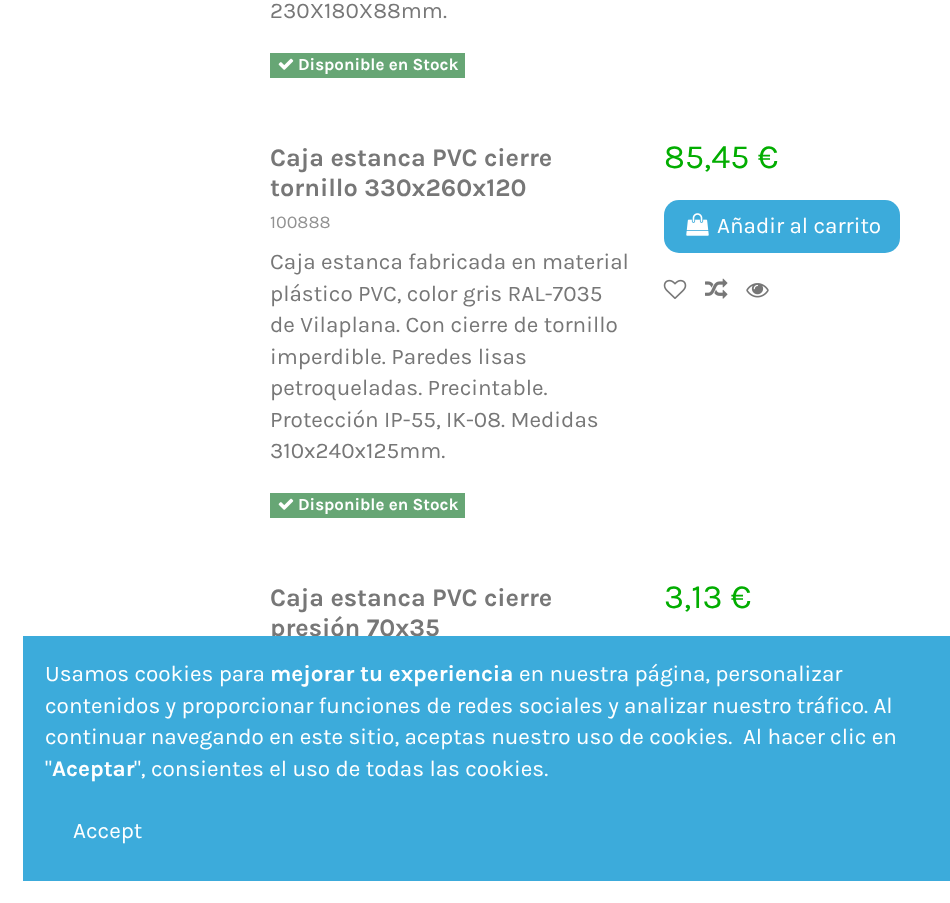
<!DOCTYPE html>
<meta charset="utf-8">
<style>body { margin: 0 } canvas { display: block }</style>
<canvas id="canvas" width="950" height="903"></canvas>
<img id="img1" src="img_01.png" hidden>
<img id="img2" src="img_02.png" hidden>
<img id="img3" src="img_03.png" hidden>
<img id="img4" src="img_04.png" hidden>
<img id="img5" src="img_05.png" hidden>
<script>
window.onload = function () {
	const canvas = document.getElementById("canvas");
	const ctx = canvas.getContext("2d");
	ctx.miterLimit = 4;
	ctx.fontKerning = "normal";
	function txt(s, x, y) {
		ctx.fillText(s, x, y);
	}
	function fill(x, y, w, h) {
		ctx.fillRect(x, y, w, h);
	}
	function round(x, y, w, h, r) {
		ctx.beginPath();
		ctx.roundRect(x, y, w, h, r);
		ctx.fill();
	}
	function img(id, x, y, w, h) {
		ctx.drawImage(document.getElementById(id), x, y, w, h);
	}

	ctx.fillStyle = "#FFFFFF";
	fill(0, 0, 950, 903);
	ctx.fillStyle = "#67A675";
	fill(270, 53, 195, 25);
	img("img1", 278, 58, 16, 12);
	fill(270, 493, 195, 25);
	img("img1", 278, 498, 16, 12);
	ctx.fillStyle = "#3CABDB";
	round(664, 200, 236, 53, 15);
	img("img2", 686, 213, 23, 23);
	img("img3", 663, 279, 24, 20);
	img("img4", 705, 278, 23, 21);
	img("img5", 746, 283, 23, 15);
	ctx.font = "22.5px Karla";
	ctx.fillStyle = "#777777";
	txt("230X180X88mm.", 270, 18);
	ctx.font = "bold 16.9px Karla";
	ctx.fillStyle = "#FFFFFF";
	txt("Disponible en Stock", 298, 70);
	ctx.font = "bold 25.25px Karla";
	ctx.fillStyle = "#777777";
	txt("Caja estanca PVC cierre", 270, 166);
	txt("tornillo 330x260x120", 270, 196);
	ctx.font = "18px Karla";
	ctx.fillStyle = "#929292";
	txt("100888", 270, 228);
	ctx.font = "22.5px Karla";
	ctx.fillStyle = "#777777";
	txt("Caja estanca fabricada en material", 270, 269);
	txt("plástico PVC, color gris RAL-7035", 270, 301);
	txt("de Vilaplana. Con cierre de tornillo", 270, 332);
	txt("imperdible. Paredes lisas", 270, 364);
	txt("petroqueladas. Precintable.", 270, 395);
	txt("Protección IP-55, IK-08. Medidas", 270, 427);
	txt("310x240x125mm.", 270, 458);
	ctx.font = "bold 16.9px Karla";
	ctx.fillStyle = "#FFFFFF";
	txt("Disponible en Stock", 298, 510);
	ctx.font = "34px Karla";
	ctx.fillStyle = "#02AD00";
	txt("85,45 €", 664, 168);
	ctx.font = "22.5px Karla";
	ctx.fillStyle = "#FFFFFF";
	txt("Añadir al carrito", 717, 233);
	ctx.font = "bold 25.25px Karla";
	ctx.fillStyle = "#777777";
	txt("Caja estanca PVC cierre", 270, 606);
	txt("presión 70x35", 270, 636);
	ctx.font = "34px Karla";
	ctx.fillStyle = "#02AD00";
	txt("3,13 €", 664, 608);
	ctx.fillStyle = "#3CABDB";
	fill(23, 636, 927, 245);
	ctx.font = "22.5px Karla";
	ctx.fillStyle = "#FFFFFF";
	txt("Usamos cookies para", 45, 681);
	ctx.font = "bold 22.5px Karla";
	txt("mejorar tu experiencia", 270, 681);
	ctx.font = "22.5px Karla";
	txt("en nuestra página, personalizar", 519, 681);
	txt("contenidos y proporcionar funciones de redes sociales y analizar nuestro tráfico. Al", 45, 713);
	txt("continuar navegando en este sitio, aceptas nuestro uso de cookies.  Al hacer clic en", 45, 744);
	txt("\"", 45, 776);
	ctx.font = "bold 22.5px Karla";
	txt("Aceptar", 52, 776);
	ctx.font = "22.5px Karla";
	txt("\", consientes el uso de todas las cookies.", 134, 776);
	txt("Accept", 73, 838);
};
</script>
